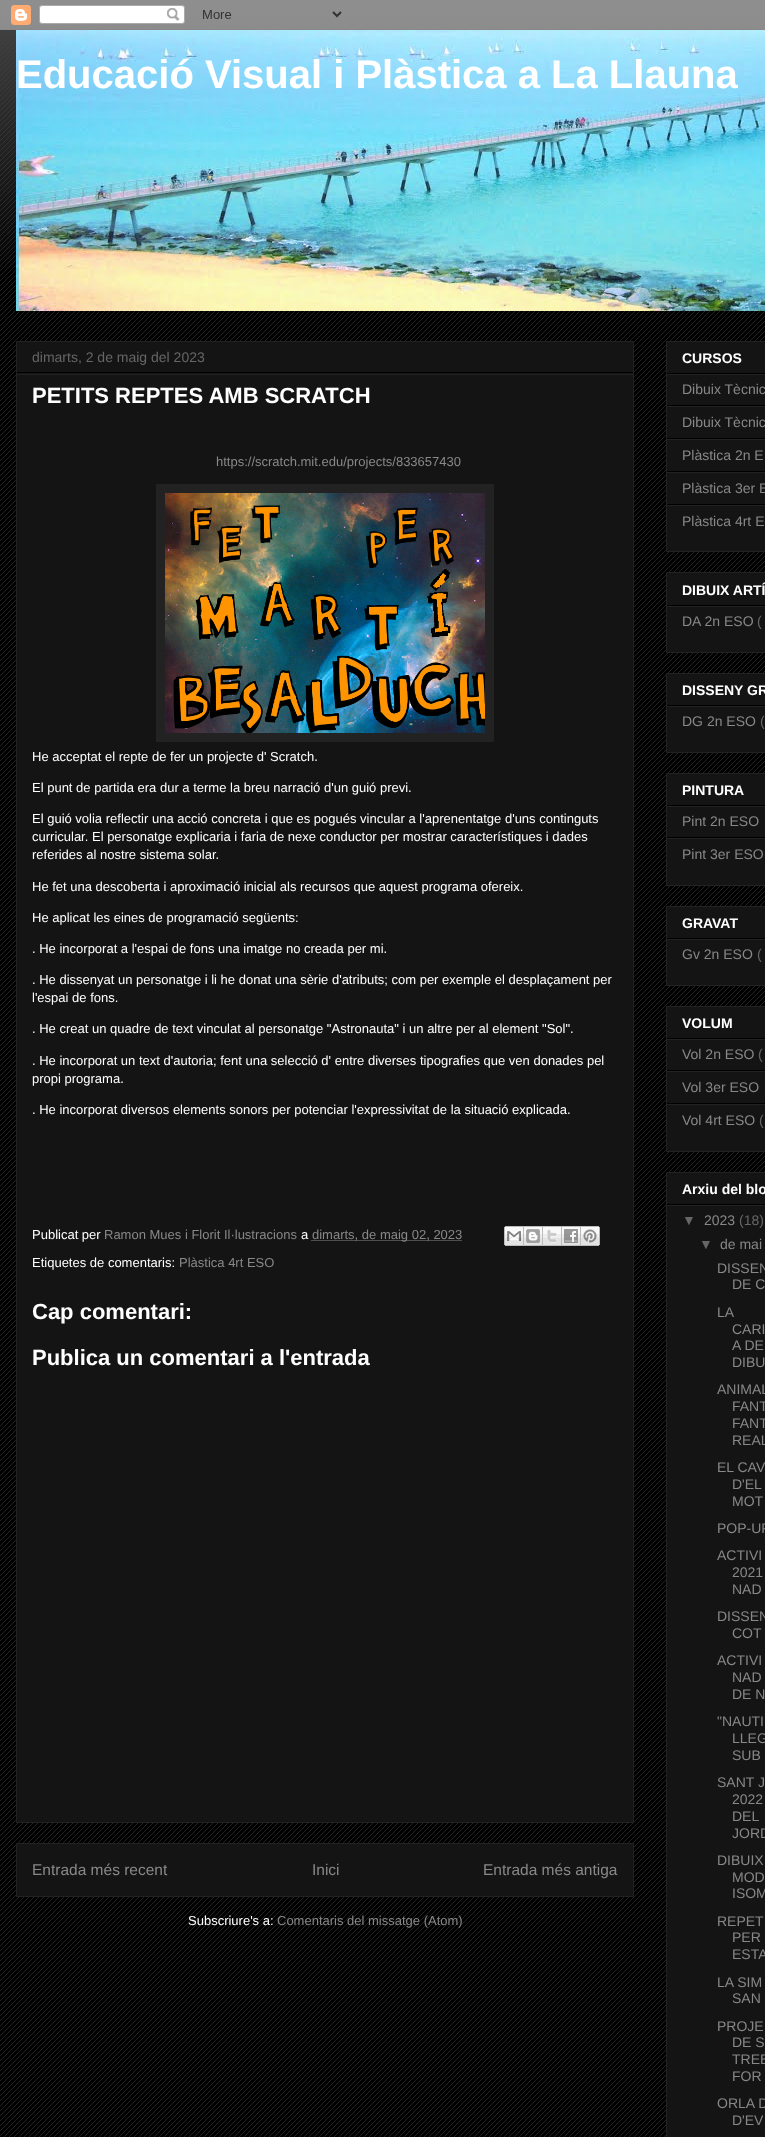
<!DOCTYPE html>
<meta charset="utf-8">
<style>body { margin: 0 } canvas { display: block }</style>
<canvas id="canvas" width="765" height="2137"></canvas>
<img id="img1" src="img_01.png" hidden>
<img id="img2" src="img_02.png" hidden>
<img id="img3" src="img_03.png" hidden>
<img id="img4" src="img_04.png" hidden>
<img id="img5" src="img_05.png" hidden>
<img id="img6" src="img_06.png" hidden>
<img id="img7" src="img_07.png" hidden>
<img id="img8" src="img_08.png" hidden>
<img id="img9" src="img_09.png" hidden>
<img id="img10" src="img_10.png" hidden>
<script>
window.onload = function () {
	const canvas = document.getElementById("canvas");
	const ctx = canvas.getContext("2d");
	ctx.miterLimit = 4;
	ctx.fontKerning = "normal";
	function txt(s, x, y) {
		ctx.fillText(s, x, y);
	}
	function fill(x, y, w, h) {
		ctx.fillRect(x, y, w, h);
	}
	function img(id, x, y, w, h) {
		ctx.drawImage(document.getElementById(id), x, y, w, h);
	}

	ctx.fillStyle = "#000000";
	fill(0, 0, 765, 2137);
	img("img1", 0, 13, 765, 2124);
	img("img2", 0, 0, 765, 268);
	img("img3", 0, 0, 765, 30);
	img("img4", 16, 30, 749, 281);
	ctx.fillStyle = "#141414";
	ctx.beginPath();
	ctx.rect(16.5, 341.5, 617, 1481);
	ctx.fill();
	ctx.strokeStyle = "#222222";
	ctx.stroke();
	ctx.fillStyle = "#000000";
	fill(17, 372, 616, 1);
	ctx.fillStyle = "#222222";
	fill(17, 374, 616, 1);
	fill(156, 484, 338, 258);
	img("img5", 165, 493, 320, 240);
	ctx.beginPath();
	ctx.moveTo(311.5, 1240.5);
	ctx.lineTo(462, 1240.5);
	ctx.strokeStyle = "#888888";
	ctx.setLineDash([1, 1]);
	ctx.stroke();
	img("img6", 504, 1226, 20, 20);
	img("img7", 524, 1226, 19, 20);
	img("img8", 543, 1226, 19, 20);
	img("img9", 562, 1226, 19, 20);
	img("img10", 581, 1226, 19, 20);
	ctx.fillStyle = "#141414";
	ctx.beginPath();
	ctx.rect(16.5, 1843.5, 617, 53);
	ctx.fill();
	ctx.strokeStyle = "#222222";
	ctx.setLineDash([]);
	ctx.stroke();
	ctx.beginPath();
	ctx.rect(666.5, 341.5, 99, 210);
	ctx.fill();
	ctx.stroke();
	ctx.fillStyle = "#000000";
	fill(667, 373, 98, 1);
	ctx.fillStyle = "#222222";
	fill(667, 374, 98, 1);
	ctx.fillStyle = "#000000";
	fill(667, 405, 98, 1);
	ctx.fillStyle = "#222222";
	fill(667, 406, 98, 1);
	ctx.fillStyle = "#000000";
	fill(667, 438, 98, 1);
	ctx.fillStyle = "#222222";
	fill(667, 439, 98, 1);
	ctx.fillStyle = "#000000";
	fill(667, 471, 98, 1);
	ctx.fillStyle = "#222222";
	fill(667, 472, 98, 1);
	ctx.fillStyle = "#000000";
	fill(667, 504, 98, 1);
	ctx.fillStyle = "#222222";
	fill(667, 505, 98, 1);
	ctx.fillStyle = "#141414";
	ctx.beginPath();
	ctx.rect(666.5, 572.5, 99, 80);
	ctx.fill();
	ctx.stroke();
	ctx.fillStyle = "#000000";
	fill(667, 605, 98, 1);
	ctx.fillStyle = "#222222";
	fill(667, 606, 98, 1);
	ctx.fillStyle = "#141414";
	ctx.beginPath();
	ctx.rect(666.5, 673.5, 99, 79);
	ctx.fill();
	ctx.stroke();
	ctx.fillStyle = "#000000";
	fill(667, 705, 98, 1);
	ctx.fillStyle = "#222222";
	fill(667, 706, 98, 1);
	ctx.fillStyle = "#141414";
	ctx.beginPath();
	ctx.rect(666.5, 773.5, 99, 112);
	ctx.fill();
	ctx.stroke();
	ctx.fillStyle = "#000000";
	fill(667, 805, 98, 1);
	ctx.fillStyle = "#222222";
	fill(667, 806, 98, 1);
	ctx.fillStyle = "#000000";
	fill(667, 837, 98, 1);
	ctx.fillStyle = "#222222";
	fill(667, 838, 98, 1);
	ctx.fillStyle = "#141414";
	ctx.beginPath();
	ctx.rect(666.5, 906.5, 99, 79);
	ctx.fill();
	ctx.stroke();
	ctx.fillStyle = "#000000";
	fill(667, 938, 98, 1);
	ctx.fillStyle = "#222222";
	fill(667, 939, 98, 1);
	ctx.fillStyle = "#141414";
	ctx.beginPath();
	ctx.rect(666.5, 1006.5, 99, 145);
	ctx.fill();
	ctx.stroke();
	ctx.fillStyle = "#000000";
	fill(667, 1038, 98, 1);
	ctx.fillStyle = "#222222";
	fill(667, 1039, 98, 1);
	ctx.fillStyle = "#000000";
	fill(667, 1070, 98, 1);
	ctx.fillStyle = "#222222";
	fill(667, 1071, 98, 1);
	ctx.fillStyle = "#000000";
	fill(667, 1103, 98, 1);
	ctx.fillStyle = "#222222";
	fill(667, 1104, 98, 1);
	ctx.fillStyle = "#141414";
	ctx.beginPath();
	ctx.rect(666.5, 1172.5, 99, 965);
	ctx.fill();
	ctx.stroke();
	ctx.fillStyle = "#000000";
	fill(667, 1204, 98, 1);
	ctx.fillStyle = "#222222";
	fill(667, 1205, 98, 1);
	ctx.font = "bold 40px Liberation Sans";
	ctx.fillStyle = "#FFFFFF";
	txt("Educació Visual i Plàstica a La Llauna", 16, 88);
	ctx.font = "14px Liberation Sans";
	ctx.fillStyle = "#666666";
	txt("dimarts, 2 de maig del 2023", 32, 362);
	ctx.font = "bold 22px Liberation Sans";
	ctx.fillStyle = "#FFFFFF";
	txt("PETITS REPTES AMB SCRATCH", 32, 403);
	ctx.font = "13px Liberation Sans";
	ctx.fillStyle = "#888888";
	txt("https://scratch.mit.edu/projects/833657430", 216, 466);
	ctx.fillStyle = "#FFFFFF";
	txt("He acceptat el repte de fer un projecte d' Scratch.", 32, 761);
	txt("El punt de partida era dur a terme la breu narració d'un guió previ.", 32, 792);
	txt("El guió volia reflectir una acció concreta i que es pogués vincular a l'aprenentatge d'uns continguts", 32, 823);
	txt("curricular. El personatge explicaria i faria de nexe conductor per mostrar característiques i dades", 32, 841);
	txt("referides al nostre sistema solar.", 32, 859);
	txt("He fet una descoberta i aproximació inicial als recursos que aquest programa ofereix.", 32, 891);
	txt("He aplicat les eines de programació següents:", 32, 922);
	txt(". He incorporat a l'espai de fons una imatge no creada per mi.", 32, 953);
	txt(". He dissenyat un personatge i li he donat una sèrie d'atributs; com per exemple el desplaçament per", 32, 984);
	txt("l'espai de fons.", 32, 1002);
	txt(". He creat un quadre de text vinculat al personatge \"Astronauta\" i un altre per al element \"Sol\".", 32, 1033);
	txt(". He incorporat un text d'autoria; fent una selecció d' entre diverses tipografies que ven donades pel", 32, 1065);
	txt("propi programa.", 32, 1083);
	txt(". He incorporat diversos elements sonors per potenciar l'expressivitat de la situació explicada.", 32, 1114);
	txt("Publicat per", 32, 1239);
	ctx.fillStyle = "#888888";
	txt("Ramon Mues i Florit Il·lustracions", 104, 1239);
	ctx.fillStyle = "#FFFFFF";
	txt("a", 301, 1239);
	ctx.fillStyle = "#888888";
	txt("dimarts, de maig 02, 2023", 312, 1239);
	ctx.fillStyle = "#FFFFFF";
	txt("Etiquetes de comentaris:", 32, 1267);
	ctx.fillStyle = "#888888";
	txt("Plàstica 4rt ESO", 179, 1267);
	ctx.font = "bold 22px Liberation Sans";
	ctx.fillStyle = "#FFFFFF";
	txt("Cap comentari:", 32, 1319);
	txt("Publica un comentari a l'entrada", 32, 1365);
	ctx.font = "15.5px Liberation Sans";
	ctx.fillStyle = "#888888";
	txt("Entrada més recent", 32, 1875);
	txt("Inici", 312, 1875);
	txt("Entrada més antiga", 483, 1875);
	ctx.font = "13px Liberation Sans";
	ctx.fillStyle = "#FFFFFF";
	txt("Subscriure's a:", 188, 1925);
	ctx.fillStyle = "#888888";
	txt("Comentaris del missatge (Atom)", 277, 1925);
	ctx.font = "bold 14px Liberation Sans";
	ctx.fillStyle = "#FFFFFF";
	txt("CURSOS", 682, 363);
	ctx.font = "14px Liberation Sans";
	ctx.fillStyle = "#888888";
	txt("Dibuix Tècnic", 682, 394);
	txt("Dibuix Tècnic", 682, 427);
	txt("Plàstica 2n E", 682, 460);
	txt("Plàstica 3er E", 682, 493);
	txt("Plàstica 4rt E", 682, 526);
	ctx.font = "bold 14px Liberation Sans";
	ctx.fillStyle = "#FFFFFF";
	txt("DIBUIX ARTÍ", 682, 595);
	ctx.font = "14px Liberation Sans";
	ctx.fillStyle = "#888888";
	txt("DA 2n ESO", 682, 626);
	ctx.fillStyle = "#666666";
	txt("(", 757, 626);
	ctx.font = "bold 14px Liberation Sans";
	ctx.fillStyle = "#FFFFFF";
	txt("DISSENY GR", 682, 695);
	ctx.font = "14px Liberation Sans";
	ctx.fillStyle = "#888888";
	txt("DG 2n ESO", 682, 726);
	ctx.fillStyle = "#666666";
	txt("(", 760, 726);
	ctx.font = "bold 14px Liberation Sans";
	ctx.fillStyle = "#FFFFFF";
	txt("PINTURA", 682, 795);
	ctx.font = "14px Liberation Sans";
	ctx.fillStyle = "#888888";
	txt("Pint 2n ESO", 682, 826);
	txt("Pint 3er ESO", 682, 859);
	ctx.font = "bold 14px Liberation Sans";
	ctx.fillStyle = "#FFFFFF";
	txt("GRAVAT", 682, 928);
	ctx.font = "14px Liberation Sans";
	ctx.fillStyle = "#888888";
	txt("Gv 2n ESO", 682, 959);
	ctx.fillStyle = "#666666";
	txt("(", 757, 959);
	ctx.font = "bold 14px Liberation Sans";
	ctx.fillStyle = "#FFFFFF";
	txt("VOLUM", 682, 1028);
	ctx.font = "14px Liberation Sans";
	ctx.fillStyle = "#888888";
	txt("Vol 2n ESO", 682, 1059);
	ctx.fillStyle = "#666666";
	txt("(", 758, 1059);
	ctx.fillStyle = "#888888";
	txt("Vol 3er ESO", 682, 1092);
	txt("Vol 4rt ESO", 682, 1125);
	ctx.fillStyle = "#666666";
	txt("(", 759, 1125);
	ctx.font = "bold 14px Liberation Sans";
	ctx.fillStyle = "#FFFFFF";
	txt("Arxiu del blo", 682, 1194);
	ctx.font = "14px Liberation Sans";
	ctx.fillStyle = "#666666";
	txt("▼", 682, 1225);
	ctx.fillStyle = "#888888";
	txt("2023", 704, 1225);
	ctx.fillStyle = "#666666";
	txt("(18)", 739, 1225);
	txt("▼", 699, 1249);
	ctx.fillStyle = "#888888";
	txt("de mai", 720, 1249);
	txt("DISSEN", 717, 1273);
	txt("DE C", 732, 1289);
	txt("LA", 717, 1317);
	txt("CARI", 732, 1334);
	txt("A DE", 732, 1350);
	txt("DIBU", 732, 1367);
	txt("ANIMAL", 717, 1394);
	txt("FANT", 732, 1411);
	txt("FANT", 732, 1428);
	txt("REAL", 732, 1445);
	txt("EL CAV", 717, 1472);
	txt("D'EL", 732, 1489);
	txt("MOT", 732, 1506);
	txt("POP-UP", 717, 1533);
	txt("ACTIVI", 717, 1560);
	txt("2021", 732, 1577);
	txt("NAD", 732, 1594);
	txt("DISSEN", 717, 1621);
	txt("COT", 732, 1638);
	txt("ACTIVI", 717, 1665);
	txt("NAD", 732, 1682);
	txt("DE N", 732, 1699);
	txt("\"NAUTI", 717, 1726);
	txt("LLEG", 732, 1743);
	txt("SUB", 732, 1760);
	txt("SANT J", 717, 1787);
	txt("2022", 732, 1804);
	txt("DEL", 732, 1821);
	txt("JORD", 732, 1838);
	txt("DIBUIX", 717, 1865);
	txt("MOD", 732, 1882);
	txt("ISOM", 732, 1898);
	txt("REPET", 717, 1926);
	txt("PER", 732, 1942);
	txt("ESTA", 732, 1959);
	txt("LA SIM", 717, 1987);
	txt("SAN", 732, 2003);
	txt("PROJE", 717, 2031);
	txt("DE S", 732, 2047);
	txt("TREB", 732, 2064);
	txt("FOR", 732, 2081);
	txt("ORLA D", 717, 2108);
	txt("D'EV", 732, 2125);
};
</script>
